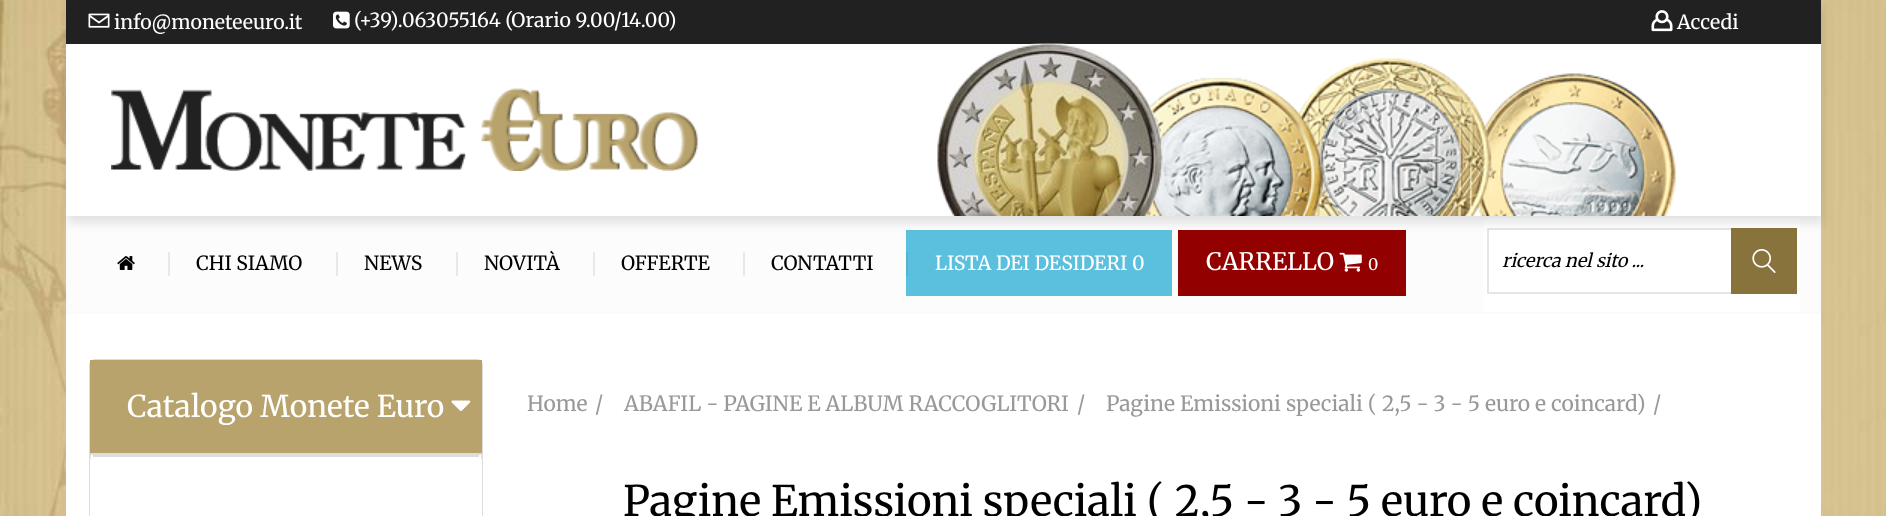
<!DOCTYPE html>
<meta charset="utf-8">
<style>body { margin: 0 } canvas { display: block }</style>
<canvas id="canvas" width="1886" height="516"></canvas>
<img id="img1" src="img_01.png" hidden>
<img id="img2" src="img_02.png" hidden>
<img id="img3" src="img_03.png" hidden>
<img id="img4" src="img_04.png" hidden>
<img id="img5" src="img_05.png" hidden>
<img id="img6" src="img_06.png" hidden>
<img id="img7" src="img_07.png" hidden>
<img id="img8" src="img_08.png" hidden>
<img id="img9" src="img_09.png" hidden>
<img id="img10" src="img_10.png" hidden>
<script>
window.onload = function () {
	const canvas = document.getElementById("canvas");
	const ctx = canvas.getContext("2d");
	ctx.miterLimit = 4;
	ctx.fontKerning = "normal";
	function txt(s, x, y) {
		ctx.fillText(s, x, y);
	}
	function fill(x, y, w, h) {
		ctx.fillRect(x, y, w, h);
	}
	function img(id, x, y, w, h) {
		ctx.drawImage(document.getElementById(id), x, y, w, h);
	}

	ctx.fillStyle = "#FFFFFF";
	fill(0, 0, 1886, 516);
	img("img1", 0, 0, 1886, 516);
	fill(66, 44, 1755, 472);
	ctx.fillStyle = "#FCFCFC";
	ctx.beginPath();
	ctx.rect(67, 217, 1753, 96);
	ctx.fill();
	ctx.strokeStyle = "#FAFAFA";
	ctx.lineWidth = 2;
	ctx.stroke();
	ctx.fillStyle = "#5BC0DE";
	fill(906, 230, 266, 66);
	ctx.fillStyle = "#930000";
	fill(1178, 230, 228, 66);
	ctx.fillStyle = "#FFFFFF";
	fill(1484, 218, 316, 94);
	ctx.strokeStyle = "#E5E5E5";
	ctx.strokeRect(1488, 229, 248, 64);
	ctx.fillStyle = "#88733C";
	fill(1731, 228, 66, 66);
	ctx.save();
	ctx.beginPath();
	ctx.moveTo(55, 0);
	ctx.lineTo(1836, 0);
	ctx.lineTo(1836, 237);
	ctx.lineTo(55, 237);
	ctx.closePath();
	ctx.moveTo(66, 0);
	ctx.lineTo(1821, 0);
	ctx.lineTo(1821, 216);
	ctx.lineTo(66, 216);
	ctx.closePath();
	ctx.clip("evenodd");
	ctx.fillStyle = "rgba(0, 0, 0, 0.09)";
	ctx.filter = "blur(4px)";
	ctx.beginPath();
	ctx.rect(68, 8, 1755, 216);
	ctx.fill();
	ctx.filter = "none";
	ctx.restore();
	ctx.fillStyle = "#212121";
	fill(66, 0, 1755, 44);
	img("img2", 88, 13, 22, 15);
	img("img3", 333, 11, 17, 18);
	img("img4", 1651, 10, 22, 22);
	img("img5", 937, 43, 739, 173);
	img("img6", 111, 88, 587, 83);
	img("img7", 117, 256, 18, 14);
	ctx.fillStyle = "#E8E8E8";
	fill(168, 252, 2, 24);
	fill(336, 252, 2, 24);
	fill(456, 252, 2, 24);
	fill(593, 252, 2, 24);
	fill(743, 252, 2, 24);
	ctx.fillStyle = "#58B2CD";
	fill(906, 252, 2, 24);
	ctx.fillStyle = "#8A0606";
	fill(1178, 249, 2, 27);
	img("img8", 1339, 252, 23, 20);
	img("img9", 1752, 249, 24, 24);
	ctx.beginPath();
	ctx.roundRect(90, 360, 392, 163, 5);
	ctx.strokeStyle = "#DDDDDD";
	ctx.stroke();
	ctx.fillStyle = "#B8A36C";
	fill(90, 360, 392, 93);
	img("img10", 451, 400, 20, 12);
	ctx.fillStyle = "#DDDDDD";
	fill(90, 453, 392, 2);
	ctx.fillStyle = "#FFFFFF";
	ctx.beginPath();
	ctx.moveTo(96, 455);
	ctx.lineTo(476, 455);
	ctx.bezierCurveTo(479.5, 455, 482, 457.5, 482, 461);
	ctx.lineTo(482, 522);
	ctx.lineTo(90, 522);
	ctx.lineTo(90, 461);
	ctx.bezierCurveTo(90, 457.5, 92.5, 455, 96, 455);
	ctx.closePath();
	ctx.fill();
	ctx.fillStyle = "#DDDDDD";
	fill(93, 455, 386, 2);
	ctx.font = "19.5px Merriweather";
	ctx.fillStyle = "#FFFFFF";
	txt("info@moneteeuro.it", 114, 29);
	txt("(+39).063055164 (Orario 9.00/14.00)", 354, 27);
	txt("Accedi", 1677, 29);
	ctx.fillStyle = "#000000";
	txt("CHI SIAMO", 196, 270);
	txt("NEWS", 364, 270);
	txt("NOVITÀ", 484, 270);
	txt("OFFERTE", 621, 270);
	txt("CONTATTI", 771, 270);
	ctx.fillStyle = "#FFFFFF";
	txt("LISTA DEI DESIDERI 0", 935, 270);
	ctx.font = "24px Merriweather";
	txt("CARRELLO", 1206, 270);
	ctx.font = "16px Merriweather";
	txt("0", 1368, 270);
	ctx.font = "italic 18px Merriweather";
	ctx.fillStyle = "#000000";
	txt("ricerca nel sito ...", 1502, 267);
	ctx.font = "30px Merriweather";
	ctx.fillStyle = "#FFFFFF";
	txt("Catalogo Monete Euro", 127, 417);
	ctx.font = "21px Merriweather";
	ctx.fillStyle = "#999999";
	txt("Home", 527, 411);
	txt("/", 595, 411);
	txt("ABAFIL - PAGINE E ALBUM RACCOGLITORI", 624, 411);
	txt("/", 1077, 411);
	txt("Pagine Emissioni speciali ( 2,5 - 3 - 5 euro e coincard)", 1106, 411);
	txt("/", 1653, 411);
	ctx.font = "42px Merriweather";
	ctx.fillStyle = "#000000";
	txt("Pagine Emissioni speciali ( 2,5 - 3 - 5 euro e coincard)", 623, 516);
};
</script>
